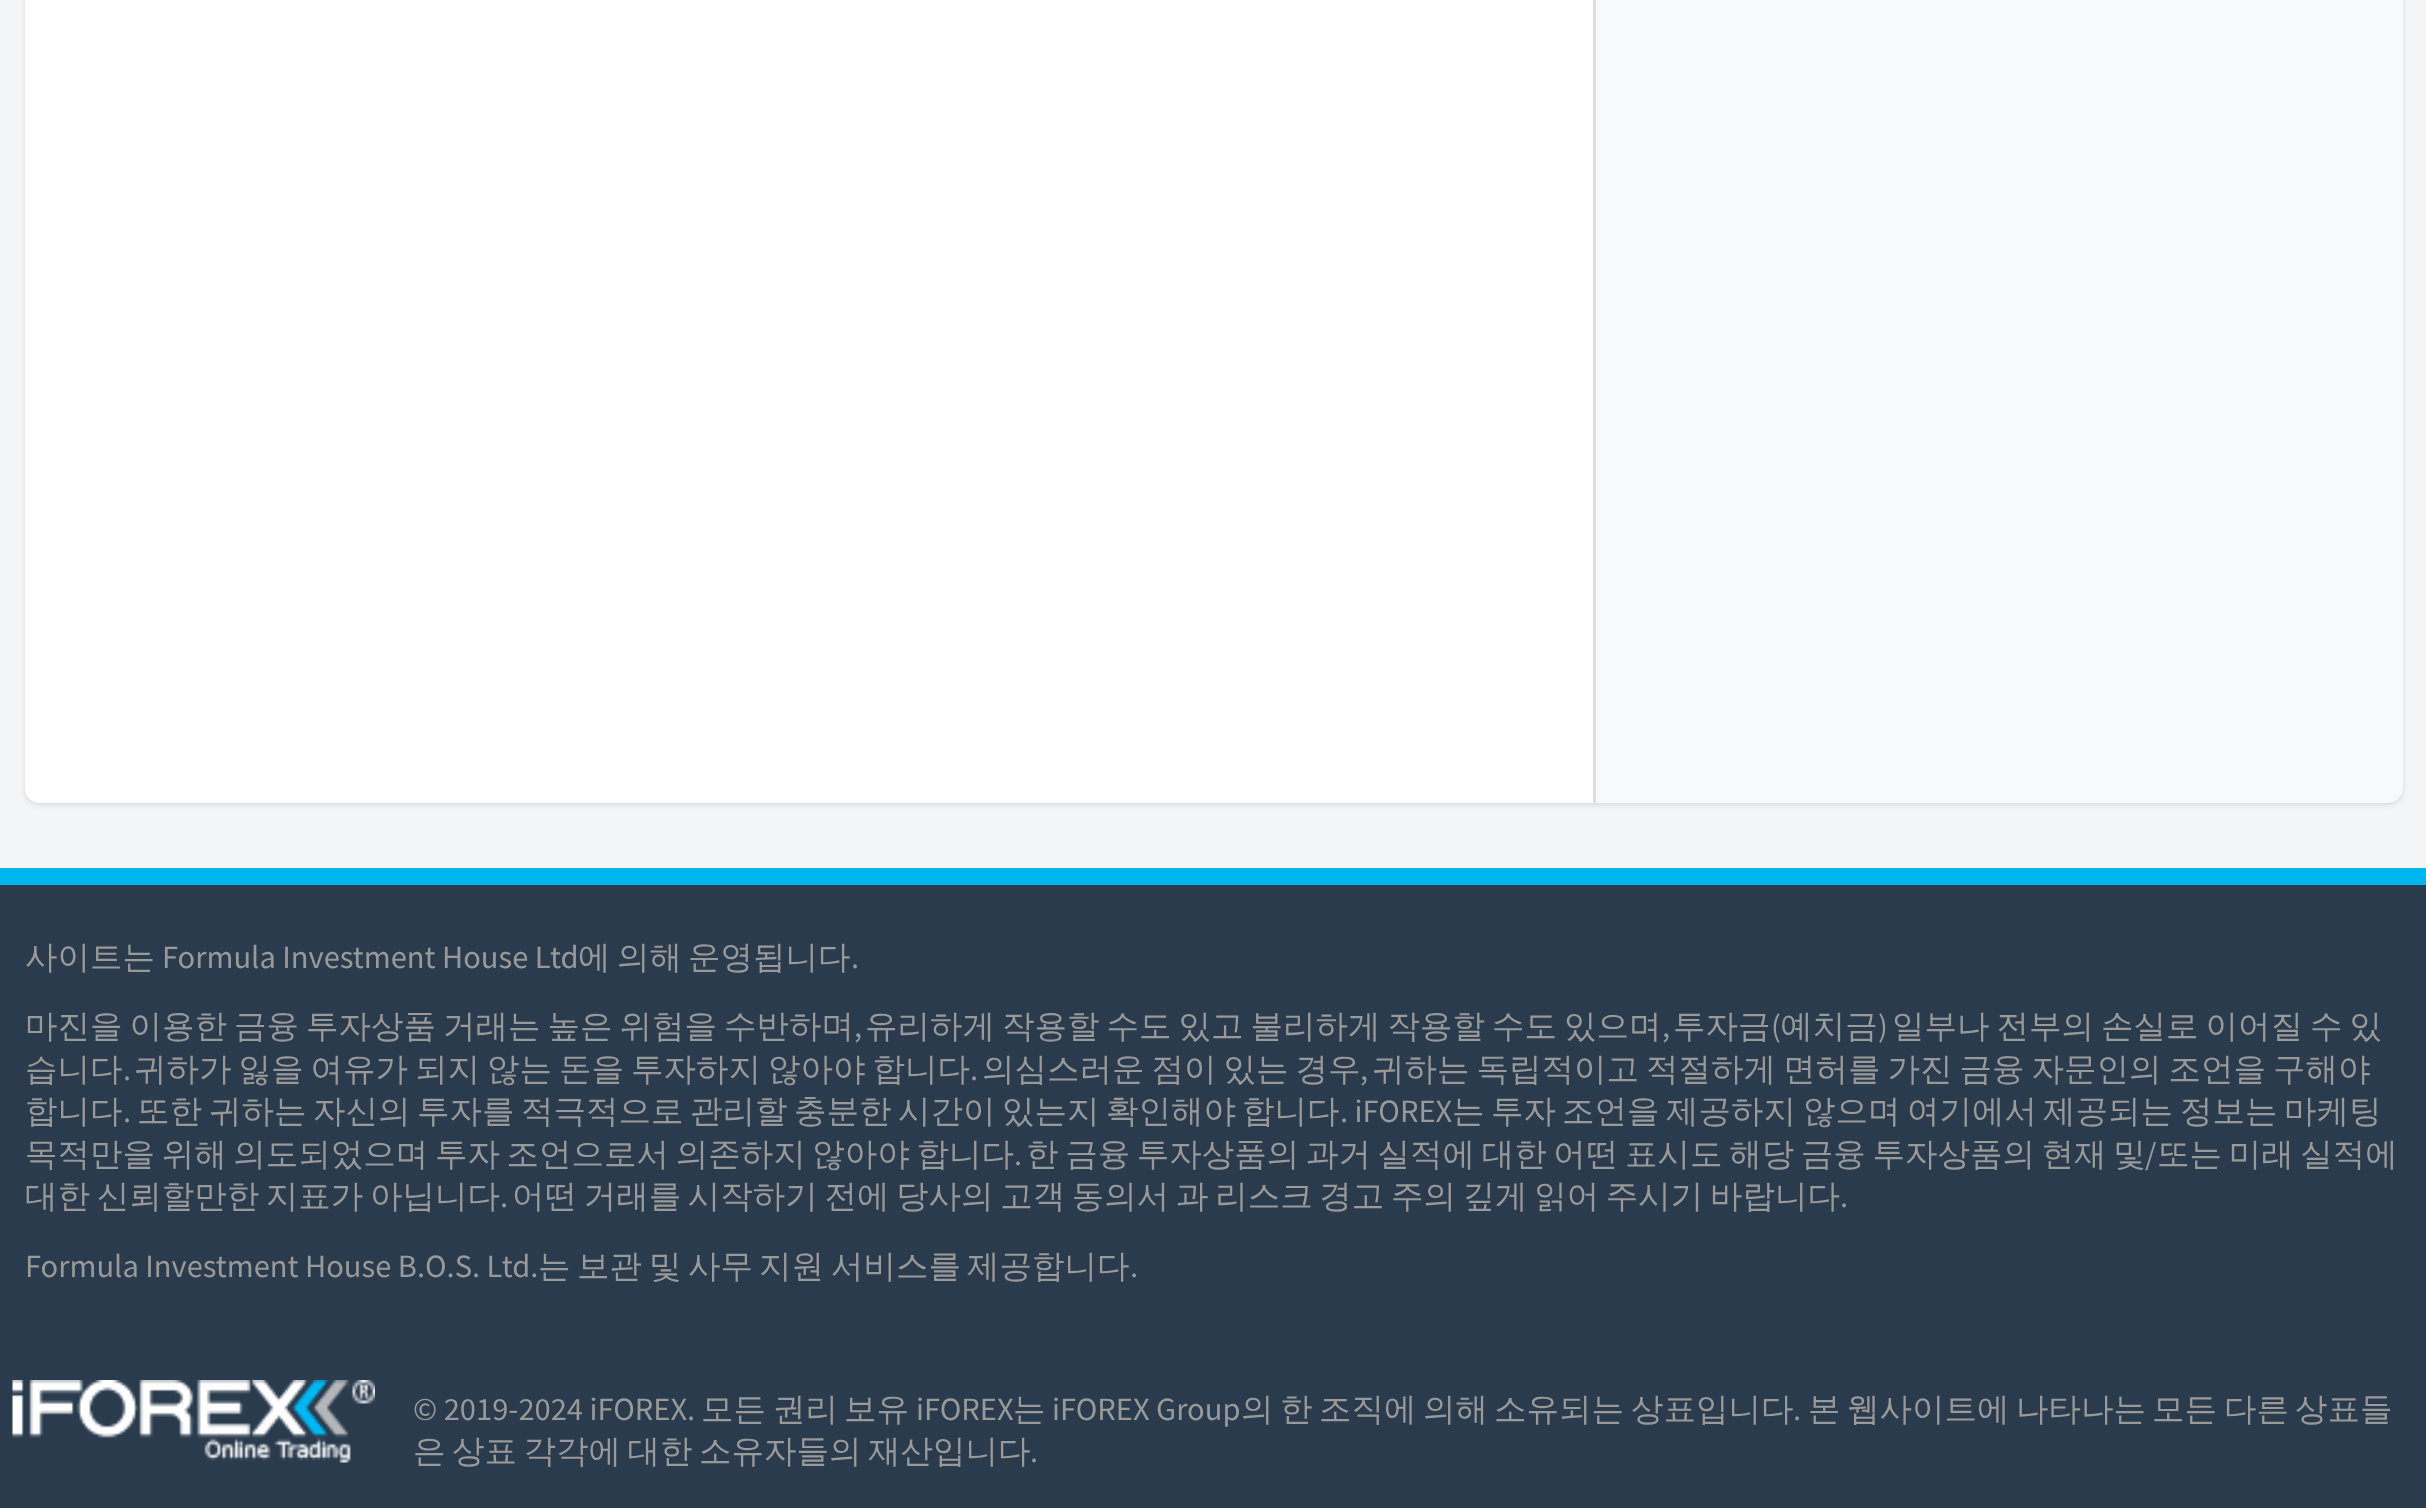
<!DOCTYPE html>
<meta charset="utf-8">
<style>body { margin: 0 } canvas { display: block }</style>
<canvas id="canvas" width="2426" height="1508"></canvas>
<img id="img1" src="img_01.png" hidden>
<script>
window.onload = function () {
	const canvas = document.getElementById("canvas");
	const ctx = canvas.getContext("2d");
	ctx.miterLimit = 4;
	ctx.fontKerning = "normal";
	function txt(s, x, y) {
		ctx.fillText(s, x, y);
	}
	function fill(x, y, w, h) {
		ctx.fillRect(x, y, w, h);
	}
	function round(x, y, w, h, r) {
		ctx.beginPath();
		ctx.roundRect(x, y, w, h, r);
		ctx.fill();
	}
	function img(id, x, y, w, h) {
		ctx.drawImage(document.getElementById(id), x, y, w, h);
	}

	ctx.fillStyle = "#F3F5F7";
	fill(0, 0, 2426, 1508);
	ctx.fillStyle = "rgba(63, 63, 68, 0.15)";
	ctx.filter = "blur(2.5px)";
	ctx.beginPath();
	ctx.roundRect(25, -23, 2378, 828, 15);
	ctx.fill();
	ctx.filter = "none";
	ctx.fillStyle = "#F8F9FA";
	round(25, -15, 2378, 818, 15);
	ctx.fillStyle = "#FFFFFF";
	ctx.beginPath();
	ctx.moveTo(40, -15);
	ctx.lineTo(1595, -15);
	ctx.lineTo(1595, 803);
	ctx.lineTo(40, 803);
	ctx.bezierCurveTo(31.5, 803, 25, 796.5, 25, 788);
	ctx.lineTo(25, 0);
	ctx.bezierCurveTo(25, -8.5, 31.5, -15, 40, -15);
	ctx.closePath();
	ctx.fill();
	ctx.fillStyle = "#DADFE3";
	fill(1593, 0, 3, 803);
	ctx.fillStyle = "#2A3B4D";
	fill(0, 885, 2426, 623);
	ctx.fillStyle = "#00B6EE";
	fill(0, 868, 2426, 17);
	img("img1", 12, 1380, 363, 83);
	ctx.font = "500 32.5px WenQuanYi Zen Hei";
	ctx.fillStyle = "#999999";
	txt("사이트는", 25, 968);
	ctx.font = "32.5px Source Sans Pro";
	txt("Formula Investment House Ltd", 162, 968);
	ctx.font = "500 32.5px WenQuanYi Zen Hei";
	txt("에", 578, 968);
	txt("의해", 617, 968);
	txt("운영됩니다", 688, 968);
	ctx.font = "32.5px Source Sans Pro";
	txt(".", 851, 968);
	ctx.wordSpacing = "-2.75px";
	ctx.font = "500 32.5px WenQuanYi Zen Hei";
	txt("마진을 이용한 금융 투자상품 거래는 높은 위험을 수반하며", 25, 1037);
	txt("유리하게 작용할 수도 있고 불리하게 작용할 수도 있으며", 865, 1037);
	ctx.wordSpacing = "0px";
	txt("투자금 예치금", 1673, 1037);
	ctx.wordSpacing = "-2.75px";
	txt("일부나 전부의 손실로 이어질 수 있", 1892, 1037);
	ctx.wordSpacing = "0px";
	ctx.font = "32.5px Source Sans Pro";
	txt(",", 854, 1037);
	txt(",", 1662, 1037);
	txt("(", 1771, 1037);
	txt(")", 1878, 1037);
	ctx.font = "500 32.5px WenQuanYi Zen Hei";
	txt("습니다", 25, 1080);
	ctx.font = "32.5px Source Sans Pro";
	txt(".", 123, 1080);
	ctx.wordSpacing = "-2.75px";
	ctx.font = "500 32.5px WenQuanYi Zen Hei";
	txt("귀하가 잃을 여유가 되지 않는 돈을 투자하지 않아야 합니다", 134, 1080);
	ctx.wordSpacing = "0px";
	ctx.font = "32.5px Source Sans Pro";
	txt(".", 970, 1080);
	ctx.wordSpacing = "-2.75px";
	ctx.font = "500 32.5px WenQuanYi Zen Hei";
	txt("의심스러운 점이 있는 경우", 982, 1080);
	ctx.wordSpacing = "0px";
	ctx.font = "32.5px Source Sans Pro";
	txt(",", 1360, 1080);
	ctx.wordSpacing = "-2.75px";
	ctx.font = "500 32.5px WenQuanYi Zen Hei";
	txt("귀하는 독립적이고 적절하게 면허를 가진 금융 자문인의 조언을 구해야", 1372, 1080);
	ctx.wordSpacing = "0px";
	txt("합니다", 25, 1122);
	ctx.font = "32.5px Source Sans Pro";
	txt(".", 123, 1122);
	ctx.font = "500 32.5px WenQuanYi Zen Hei";
	txt("또한", 137, 1122);
	txt("귀하는", 209, 1122);
	txt("자신의", 313, 1122);
	txt("투자를", 417, 1122);
	txt("적극적으로", 521, 1122);
	txt("관리할", 690, 1122);
	txt("충분한", 794, 1122);
	txt("시간이", 898, 1122);
	txt("있는지", 1002, 1122);
	txt("확인해야", 1106, 1122);
	txt("합니다", 1242, 1122);
	ctx.font = "32.5px Source Sans Pro";
	txt(". iFOREX", 1340, 1122);
	ctx.font = "500 32.5px WenQuanYi Zen Hei";
	txt("는", 1452, 1122);
	txt("투자", 1491, 1122);
	txt("조언을", 1562, 1122);
	txt("제공하지", 1666, 1122);
	txt("않으며", 1803, 1122);
	txt("여기에서", 1907, 1122);
	txt("제공되는", 2043, 1122);
	txt("정보는", 2180, 1122);
	txt("마케팅", 2284, 1122);
	ctx.wordSpacing = "-3.1px";
	txt("목적만을 위해 의도되었으며 투자 조언으로서 의존하지 않아야 합니다", 25, 1165);
	ctx.wordSpacing = "0px";
	ctx.font = "32.5px Source Sans Pro";
	txt(".", 1014, 1165);
	ctx.wordSpacing = "-3.1px";
	ctx.font = "500 32.5px WenQuanYi Zen Hei";
	txt("한 금융 투자상품의 과거 실적에 대한 어떤 표시도 해당 금융 투자상품의 현재 및", 1026, 1165);
	ctx.wordSpacing = "0px";
	ctx.font = "32.5px Source Sans Pro";
	txt("/", 2145, 1165);
	ctx.wordSpacing = "-3.1px";
	ctx.font = "500 32.5px WenQuanYi Zen Hei";
	txt("또는 미래 실적에", 2157, 1165);
	txt("대한 신뢰할만한 지표가 아닙니다", 25, 1207);
	ctx.wordSpacing = "0px";
	ctx.font = "32.5px Source Sans Pro";
	txt(".", 500, 1207);
	ctx.wordSpacing = "-3.1px";
	ctx.font = "500 32.5px WenQuanYi Zen Hei";
	txt("어떤 거래를 시작하기 전에 당사의 고객 동의서 과 리스크 경고 주의 깊게 읽어 주시기 바랍니다", 512, 1207);
	ctx.wordSpacing = "0px";
	ctx.font = "32.5px Source Sans Pro";
	txt(".", 1840, 1207);
	txt("Formula Investment House B.O.S. Ltd.", 25, 1277);
	ctx.font = "500 32.5px WenQuanYi Zen Hei";
	txt("는", 538, 1277);
	txt("보관", 577, 1277);
	txt("및", 649, 1277);
	txt("사무", 688, 1277);
	txt("지원", 759, 1277);
	txt("서비스를", 831, 1277);
	txt("제공합니다", 967, 1277);
	ctx.font = "32.5px Source Sans Pro";
	txt(".", 1130, 1277);
	txt("© 2019-2024 iFOREX.", 413, 1420);
	ctx.font = "500 32.5px WenQuanYi Zen Hei";
	txt("모든", 701, 1420);
	txt("권리", 773, 1420);
	txt("보유", 844, 1420);
	ctx.font = "32.5px Source Sans Pro";
	txt("iFOREX", 916, 1420);
	ctx.font = "500 32.5px WenQuanYi Zen Hei";
	txt("는", 1013, 1420);
	ctx.font = "32.5px Source Sans Pro";
	txt("iFOREX Group", 1052, 1420);
	ctx.font = "500 32.5px WenQuanYi Zen Hei";
	txt("의", 1241, 1420);
	txt("한", 1280, 1420);
	txt("조직에", 1319, 1420);
	txt("의해", 1423, 1420);
	txt("소유되는", 1494, 1420);
	txt("상표입니다", 1631, 1420);
	ctx.font = "32.5px Source Sans Pro";
	txt(".", 1793, 1420);
	ctx.font = "500 32.5px WenQuanYi Zen Hei";
	txt("본", 1808, 1420);
	txt("웹사이트에", 1847, 1420);
	txt("나타나는", 2016, 1420);
	txt("모든", 2152, 1420);
	txt("다른", 2224, 1420);
	txt("상표들", 2295, 1420);
	ctx.wordSpacing = "-3.25px";
	txt("은 상표 각각에 대한 소유자들의 재산입니다", 413, 1462);
	ctx.wordSpacing = "0px";
	ctx.font = "32.5px Source Sans Pro";
	txt(".", 1030, 1462);
};
</script>
